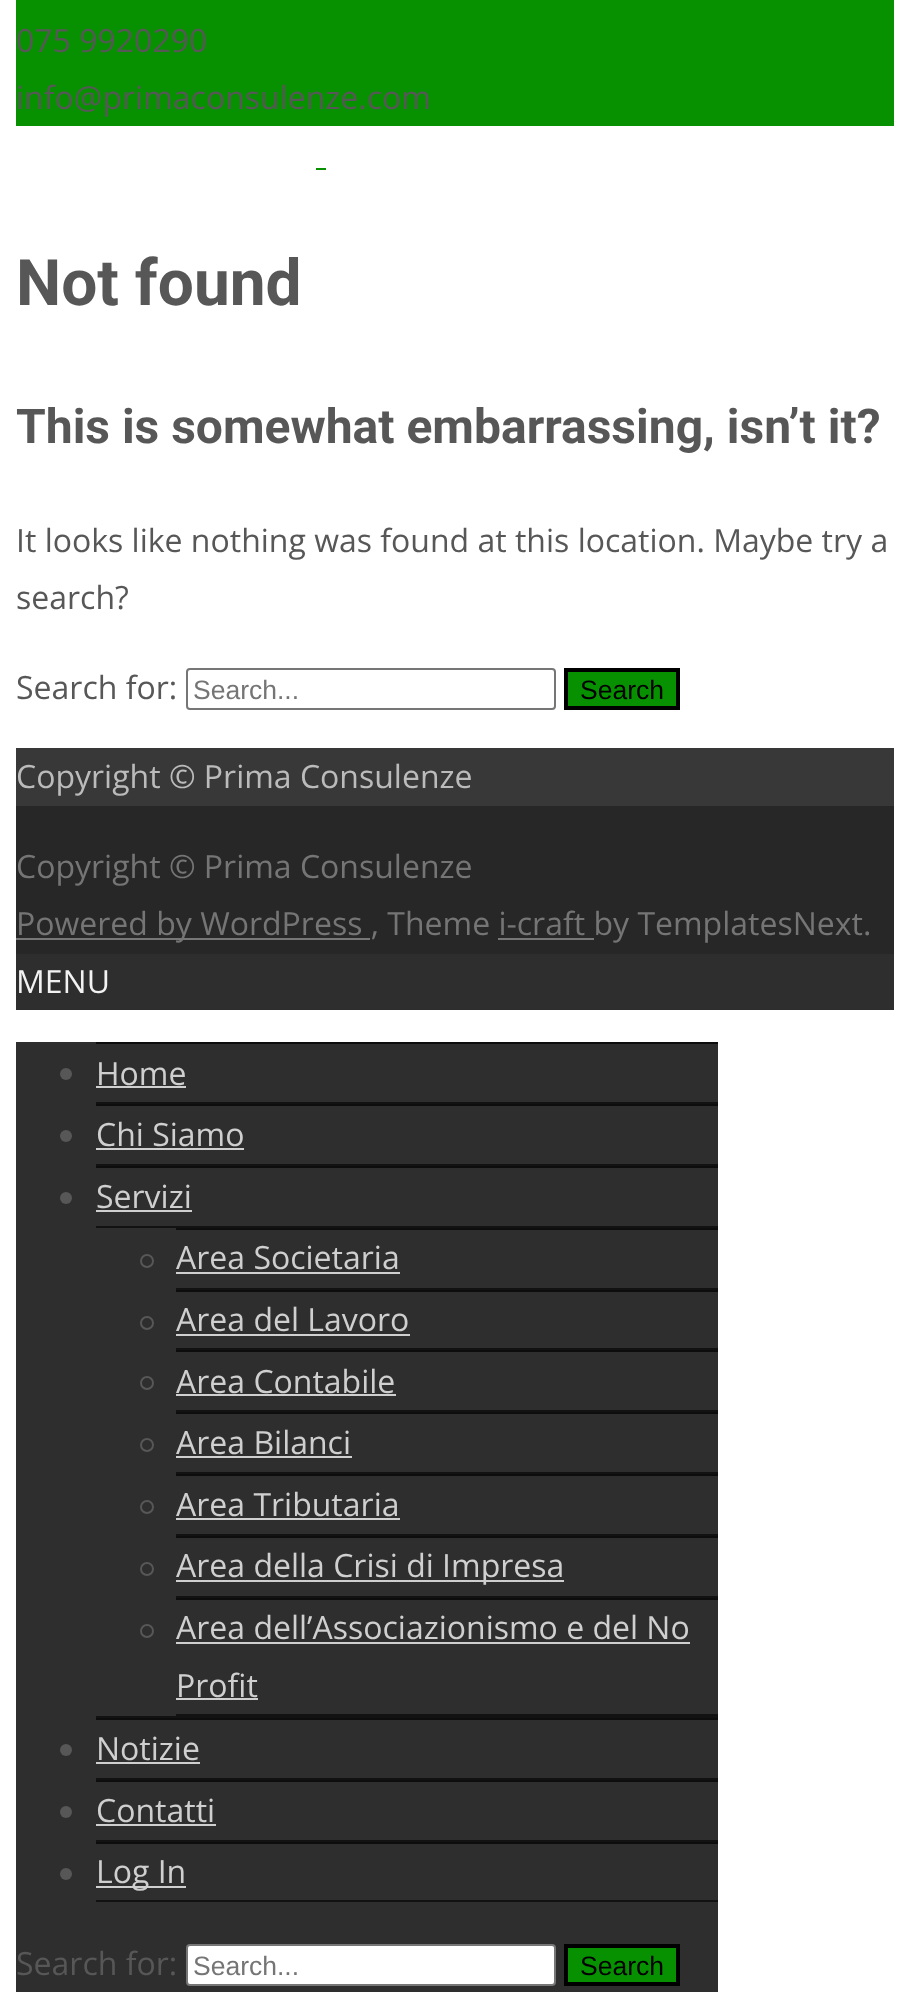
<!DOCTYPE html>
<meta charset="utf-8">
<style>body { margin: 0 } canvas { display: block }</style>
<canvas id="canvas" width="909" height="2007"></canvas>
<script>
window.onload = function () {
	const canvas = document.getElementById("canvas");
	const ctx = canvas.getContext("2d");
	ctx.miterLimit = 4;
	ctx.fontKerning = "normal";
	function txt(s, x, y) {
		ctx.fillText(s, x, y);
	}
	function fill(x, y, w, h) {
		ctx.fillRect(x, y, w, h);
	}

	ctx.fillStyle = "#FFFFFF";
	fill(0, 0, 909, 2007);
	ctx.fillStyle = "#079100";
	fill(16, 0, 878, 126);
	fill(316, 168, 10, 2);
	ctx.beginPath();
	ctx.roundRect(187, 669, 368, 40, 3);
	ctx.strokeStyle = "#767676";
	ctx.lineWidth = 2;
	ctx.stroke();
	ctx.beginPath();
	ctx.rect(566, 670, 112, 38);
	ctx.fill();
	ctx.strokeStyle = "#000000";
	ctx.lineWidth = 4;
	ctx.stroke();
	ctx.fillStyle = "#272727";
	fill(16, 806, 878, 148);
	ctx.fillStyle = "#383838";
	fill(16, 748, 878, 58);
	ctx.fillStyle = "#777777";
	fill(16, 938, 354, 2);
	ctx.fillStyle = "#2E2E2E";
	fill(16, 954, 878, 56);
	fill(16, 1042, 702, 950);
	ctx.fillStyle = "#0D0D0D";
	fill(96, 1042, 622, 2);
	ctx.fillStyle = "#131212";
	fill(96, 1102, 622, 2);
	ctx.fillStyle = "#575757";
	ctx.beginPath();
	ctx.arc(66, 1074, 6, 0, Math.PI * 2);
	ctx.fill();
	ctx.fillStyle = "#CFCFCF";
	fill(96, 1086, 90, 2);
	ctx.fillStyle = "#0D0D0D";
	fill(96, 1104, 622, 2);
	ctx.fillStyle = "#131212";
	fill(96, 1164, 622, 2);
	ctx.fillStyle = "#575757";
	ctx.beginPath();
	ctx.arc(66, 1136, 6, 0, Math.PI * 2);
	ctx.fill();
	ctx.fillStyle = "#CFCFCF";
	fill(96, 1148, 148, 2);
	ctx.fillStyle = "#0D0D0D";
	fill(96, 1166, 622, 2);
	ctx.fillStyle = "#131212";
	fill(96, 1716, 622, 2);
	ctx.fillStyle = "#575757";
	ctx.beginPath();
	ctx.arc(66, 1198, 6, 0, Math.PI * 2);
	ctx.fill();
	ctx.fillStyle = "#CFCFCF";
	fill(96, 1210, 96, 2);
	ctx.fillStyle = "#131212";
	fill(96, 1226, 622, 2);
	ctx.fillStyle = "#0D0D0D";
	fill(176, 1228, 542, 2);
	ctx.fillStyle = "#131212";
	fill(176, 1288, 542, 2);
	ctx.beginPath();
	ctx.arc(147, 1261, 6, 0, Math.PI * 2);
	ctx.strokeStyle = "#575757";
	ctx.lineWidth = 2;
	ctx.stroke();
	ctx.fillStyle = "#CFCFCF";
	fill(176, 1272, 224, 2);
	ctx.fillStyle = "#0D0D0D";
	fill(176, 1290, 542, 2);
	ctx.fillStyle = "#131212";
	fill(176, 1348, 542, 2);
	ctx.beginPath();
	ctx.arc(147, 1323, 6, 0, Math.PI * 2);
	ctx.stroke();
	ctx.fillStyle = "#CFCFCF";
	fill(176, 1334, 234, 2);
	ctx.fillStyle = "#0D0D0D";
	fill(176, 1350, 542, 2);
	ctx.fillStyle = "#131212";
	fill(176, 1410, 542, 2);
	ctx.beginPath();
	ctx.arc(147, 1383, 6, 0, Math.PI * 2);
	ctx.stroke();
	ctx.fillStyle = "#CFCFCF";
	fill(176, 1394, 220, 2);
	ctx.fillStyle = "#0D0D0D";
	fill(176, 1412, 542, 2);
	ctx.fillStyle = "#131212";
	fill(176, 1472, 542, 2);
	ctx.beginPath();
	ctx.arc(147, 1445, 6, 0, Math.PI * 2);
	ctx.stroke();
	ctx.fillStyle = "#CFCFCF";
	fill(176, 1456, 176, 2);
	ctx.fillStyle = "#0D0D0D";
	fill(176, 1474, 542, 2);
	ctx.fillStyle = "#131212";
	fill(176, 1534, 542, 2);
	ctx.beginPath();
	ctx.arc(147, 1507, 6, 0, Math.PI * 2);
	ctx.stroke();
	ctx.fillStyle = "#CFCFCF";
	fill(176, 1518, 224, 2);
	ctx.fillStyle = "#0D0D0D";
	fill(176, 1536, 542, 2);
	ctx.fillStyle = "#131212";
	fill(176, 1596, 542, 2);
	ctx.beginPath();
	ctx.arc(147, 1569, 6, 0, Math.PI * 2);
	ctx.stroke();
	ctx.fillStyle = "#CFCFCF";
	fill(176, 1580, 388, 2);
	ctx.fillStyle = "#0D0D0D";
	fill(176, 1598, 542, 2);
	ctx.fillStyle = "#131212";
	fill(176, 1714, 542, 2);
	ctx.beginPath();
	ctx.arc(147, 1631, 6, 0, Math.PI * 2);
	ctx.stroke();
	ctx.fillStyle = "#CFCFCF";
	fill(176, 1642, 514, 2);
	fill(176, 1698, 82, 2);
	ctx.fillStyle = "#0D0D0D";
	fill(96, 1718, 622, 2);
	ctx.fillStyle = "#131212";
	fill(96, 1778, 622, 2);
	ctx.fillStyle = "#575757";
	ctx.beginPath();
	ctx.arc(66, 1750, 6, 0, Math.PI * 2);
	ctx.fill();
	ctx.fillStyle = "#CFCFCF";
	fill(96, 1762, 104, 2);
	ctx.fillStyle = "#0D0D0D";
	fill(96, 1780, 622, 2);
	ctx.fillStyle = "#131212";
	fill(96, 1840, 622, 2);
	ctx.fillStyle = "#575757";
	ctx.beginPath();
	ctx.arc(66, 1812, 6, 0, Math.PI * 2);
	ctx.fill();
	ctx.fillStyle = "#CFCFCF";
	fill(96, 1824, 120, 2);
	ctx.fillStyle = "#0D0D0D";
	fill(96, 1842, 622, 2);
	ctx.fillStyle = "#131212";
	fill(96, 1900, 622, 2);
	ctx.fillStyle = "#575757";
	ctx.beginPath();
	ctx.arc(66, 1874, 6, 0, Math.PI * 2);
	ctx.fill();
	ctx.fillStyle = "#CFCFCF";
	fill(96, 1886, 90, 2);
	ctx.fillStyle = "#FFFFFF";
	ctx.beginPath();
	ctx.roundRect(187, 1945, 368, 40, 3);
	ctx.fill();
	ctx.strokeStyle = "#767676";
	ctx.stroke();
	ctx.fillStyle = "#079100";
	ctx.beginPath();
	ctx.rect(566, 1946, 112, 38);
	ctx.fill();
	ctx.strokeStyle = "#000000";
	ctx.lineWidth = 4;
	ctx.stroke();
	ctx.font = "32px Open Sans";
	ctx.fillStyle = "#575757";
	txt("075 9920290", 16, 52);
	txt("info@primaconsulenze.com", 16, 109);
	ctx.font = "bold 64px Roboto";
	txt("Not found", 16, 305);
	ctx.font = "bold 48px Roboto";
	txt("This is somewhat embarrassing, isn’t it?", 16, 443);
	ctx.font = "32px Open Sans";
	txt("It looks like nothing was found at this location. Maybe try a", 16, 552);
	txt("search?", 16, 609);
	txt("Search for:", 16, 699);
	ctx.font = "26.5px Liberation Sans";
	ctx.fillStyle = "#757575";
	txt("Search...", 193, 699);
	ctx.fillStyle = "#000000";
	txt("Search", 580, 699);
	ctx.font = "32px Open Sans";
	ctx.fillStyle = "#BBBBBB";
	txt("Copyright © Prima Consulenze", 16, 788);
	ctx.fillStyle = "#757575";
	txt("Copyright © Prima Consulenze", 16, 878);
	txt("Powered by WordPress , Theme i-craft by TemplatesNext.", 16, 935);
	ctx.fillStyle = "#777777";
	fill(498, 938, 96, 2);
	ctx.fillStyle = "#F2F2F2";
	txt("MENU", 16, 993);
	ctx.fillStyle = "#CFCFCF";
	txt("Home", 96, 1085);
	txt("Chi Siamo", 96, 1146);
	txt("Servizi", 96, 1208);
	txt("Area Societaria", 176, 1269);
	txt("Area del Lavoro", 176, 1331);
	txt("Area Contabile", 176, 1393);
	txt("Area Bilanci", 176, 1454);
	txt("Area Tributaria", 176, 1516);
	txt("Area della Crisi di Impresa", 176, 1577);
	txt("Area dell’Associazionismo e del No", 176, 1639);
	txt("Profit", 176, 1697);
	txt("Notizie", 96, 1760);
	txt("Contatti", 96, 1822);
	txt("Log In", 96, 1883);
	ctx.fillStyle = "#575757";
	txt("Search for:", 16, 1975);
	ctx.font = "26.5px Liberation Sans";
	ctx.fillStyle = "#757575";
	txt("Search...", 193, 1975);
	ctx.fillStyle = "#000000";
	txt("Search", 580, 1975);
};
</script>
